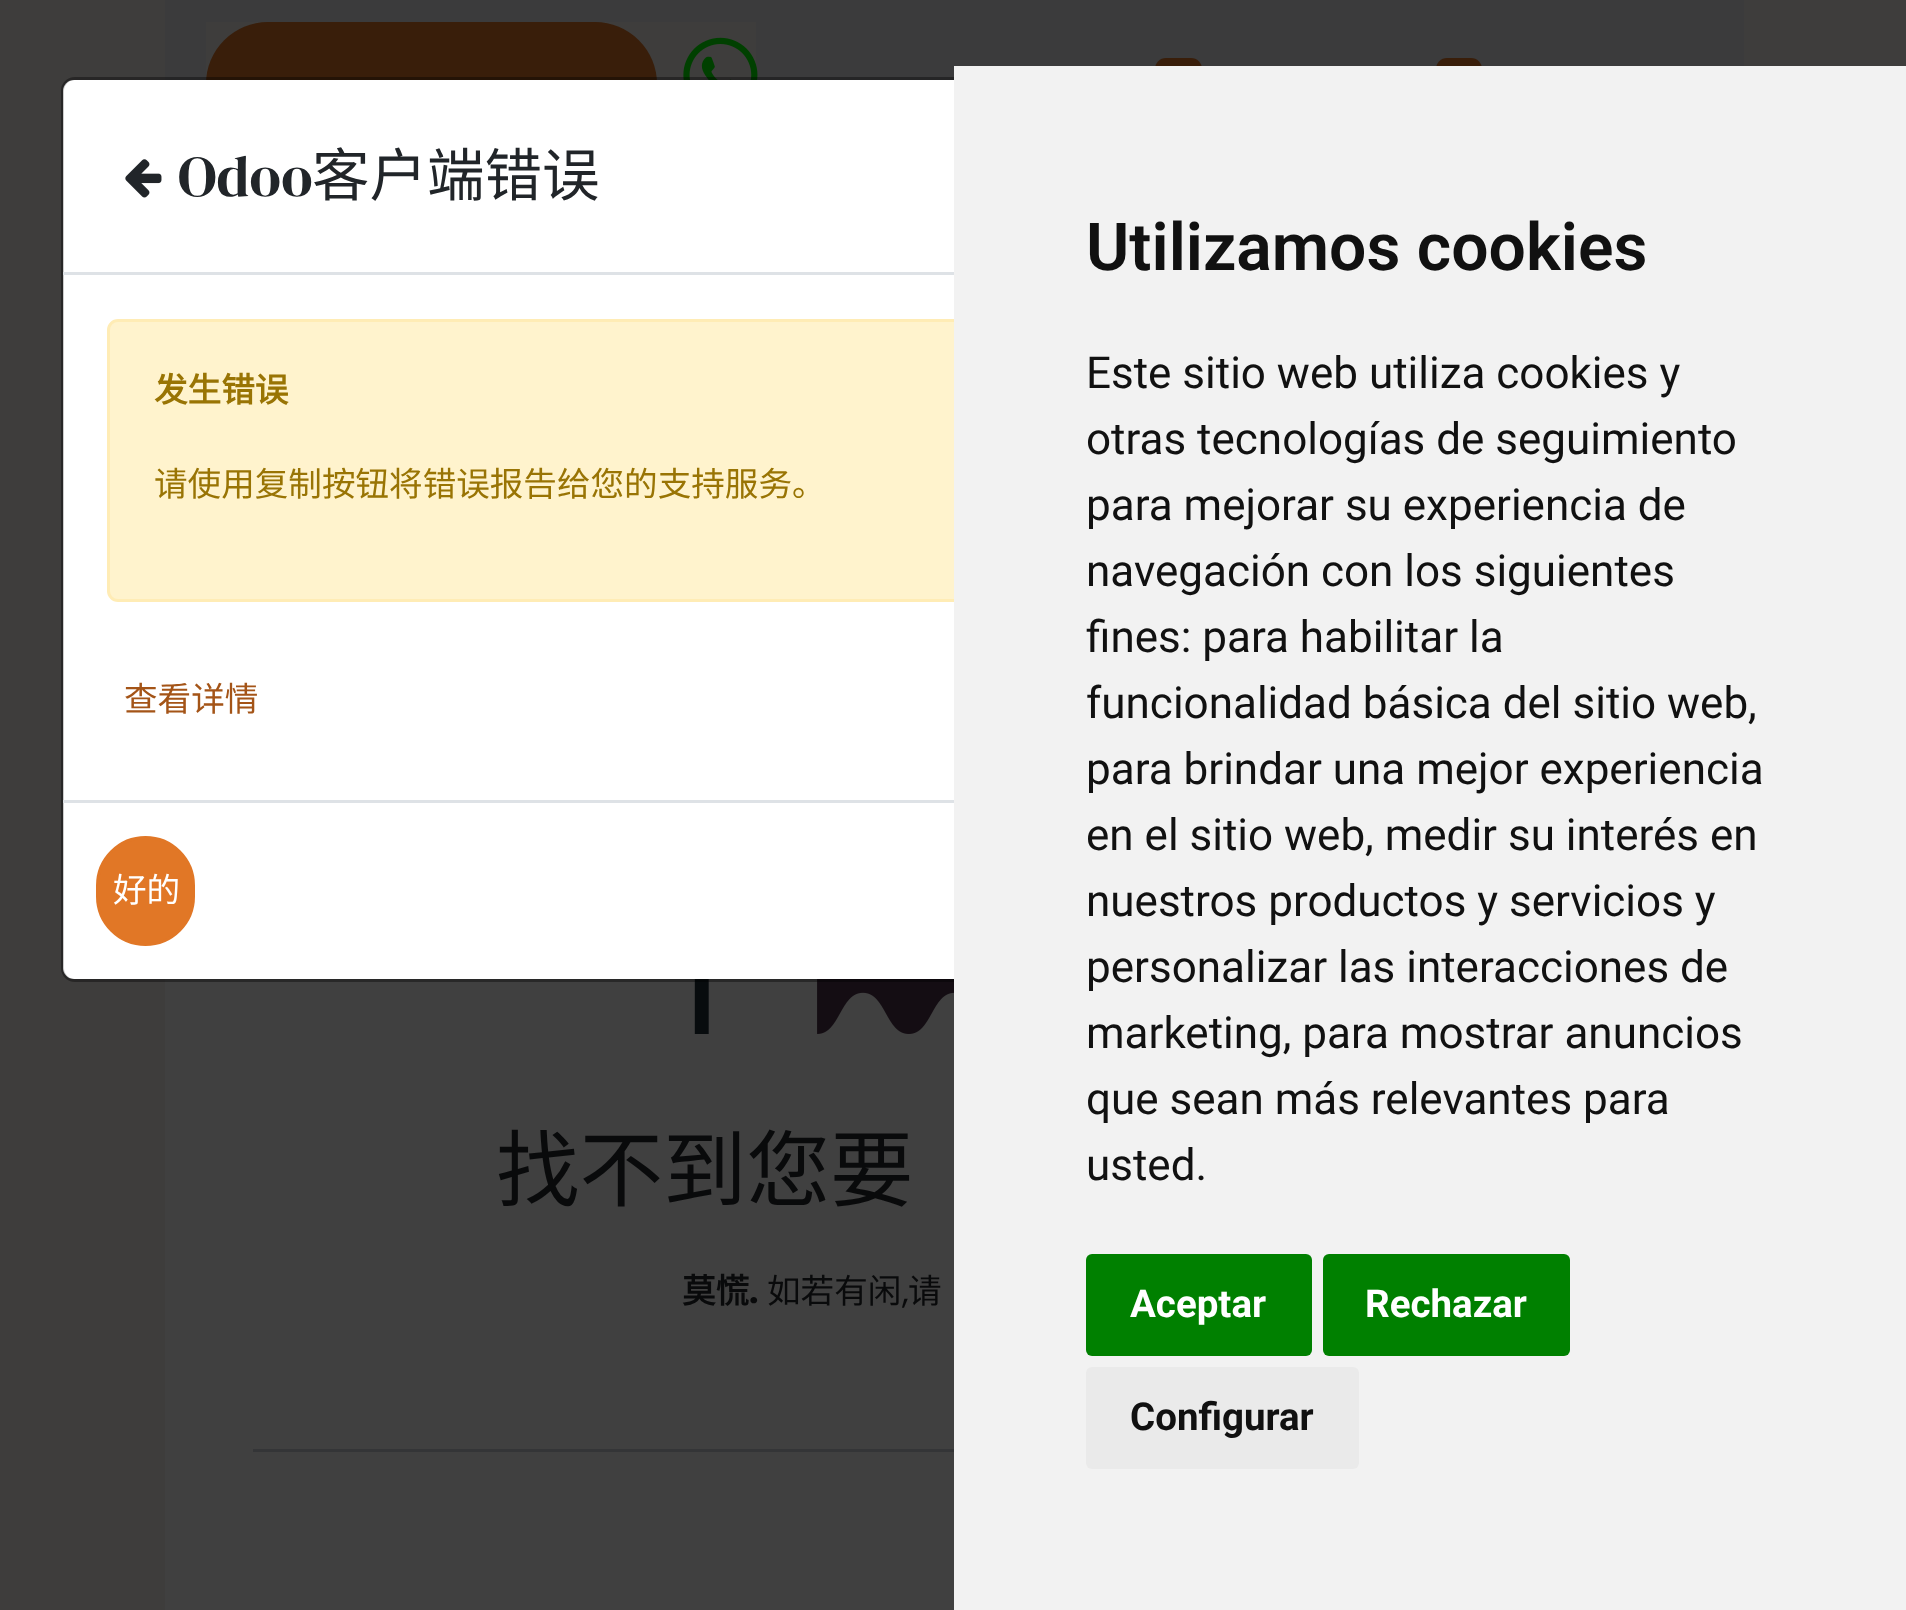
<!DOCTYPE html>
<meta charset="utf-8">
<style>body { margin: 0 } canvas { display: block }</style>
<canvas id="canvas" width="1906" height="1610"></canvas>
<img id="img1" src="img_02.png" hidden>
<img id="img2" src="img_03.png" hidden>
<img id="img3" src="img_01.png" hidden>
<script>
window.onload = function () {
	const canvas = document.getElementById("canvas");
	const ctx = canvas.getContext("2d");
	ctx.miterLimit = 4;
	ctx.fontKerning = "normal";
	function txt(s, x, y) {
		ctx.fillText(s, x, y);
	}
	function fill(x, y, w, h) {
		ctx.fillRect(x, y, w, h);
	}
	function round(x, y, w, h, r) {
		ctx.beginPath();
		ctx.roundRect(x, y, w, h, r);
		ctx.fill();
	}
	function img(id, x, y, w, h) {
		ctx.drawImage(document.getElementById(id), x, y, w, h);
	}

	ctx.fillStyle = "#3E3D3C";
	fill(0, 0, 1906, 1610);
	ctx.fillStyle = "#3B3B3C";
	fill(165, 0, 1579, 80);
	ctx.fillStyle = "#3E3D3C";
	fill(206, 22, 550, 58);
	ctx.fillStyle = "#391E0A";
	round(206, 22, 451, 124, 62);
	img("img1", 683, 37, 75, 43);
	round(1155, 58, 47, 49, 11);
	round(1436, 58, 46, 49, 11);
	ctx.fillStyle = "#404040";
	fill(165, 979, 789, 631);
	img("img2", 694, 979, 260, 55);
	ctx.beginPath();
	ctx.roundRect(62.5, 78.5, 1784, 902, 12.5);
	ctx.strokeStyle = "rgba(0, 0, 0, 0.2)";
	ctx.lineWidth = 3;
	ctx.stroke();
	ctx.fillStyle = "#FFFFFF";
	round(63, 80, 1782, 899, 11);
	ctx.beginPath();
	ctx.roundRect(62.5, 78.5, 1784, 902, 12.5);
	ctx.stroke();
	ctx.fillStyle = "#DEE2E6";
	fill(63, 272, 891, 3);
	img("img3", 125, 159, 37, 39);
	ctx.fillStyle = "#FFF3CD";
	ctx.beginPath();
	ctx.roundRect(108.5, 320.5, 1691, 280, 9.5);
	ctx.fill();
	ctx.strokeStyle = "#FFECB5";
	ctx.stroke();
	ctx.fillStyle = "#DEE2E6";
	fill(63, 800, 891, 3);
	ctx.fillStyle = "#E17726";
	ctx.beginPath();
	ctx.roundRect(97.5, 837.5, 96, 107, 48);
	ctx.fill();
	ctx.strokeStyle = "#E17726";
	ctx.stroke();
	ctx.fillStyle = "#F2F2F2";
	fill(954, 66, 952, 1544);
	ctx.fillStyle = "#008000";
	round(1086, 1254, 226, 102, 6);
	round(1323, 1254, 247, 102, 6);
	ctx.fillStyle = "#EAEAEA";
	round(1086, 1367, 273, 102, 6);
	ctx.fillStyle = "#343537";
	fill(253, 1449, 701, 3);
	ctx.font = "57.5px DM Serif Display";
	ctx.fillStyle = "#212529";
	txt("Odoo", 178, 196);
	ctx.font = "57.5px Noto Sans CJK SC";
	txt("客户端错误", 312, 196);
	ctx.font = "bold 33.6px Noto Sans CJK SC";
	ctx.fillStyle = "#997404";
	txt("发生错误", 154, 402);
	ctx.font = "33.6px Noto Sans CJK SC";
	txt("请使用复制按钮将错误报告给您的支持服务。", 154, 496);
	ctx.fillStyle = "#A45417";
	txt("查看详情", 124, 711);
	ctx.fillStyle = "#FFFFFF";
	txt("好的", 113, 902);
	ctx.font = "600 66px Roboto";
	ctx.fillStyle = "#111111";
	txt("Utilizamos cookies", 1086, 270);
	ctx.font = "44px Roboto";
	txt("Este sitio web utiliza cookies y", 1086, 388);
	txt("otras tecnologías de seguimiento", 1086, 454);
	txt("para mejorar su experiencia de", 1086, 520);
	txt("navegación con los siguientes", 1086, 586);
	txt("fines: para habilitar la", 1086, 652);
	txt("funcionalidad básica del sitio web,", 1086, 718);
	txt("para brindar una mejor experiencia", 1086, 784);
	txt("en el sitio web, medir su interés en", 1086, 850);
	txt("nuestros productos y servicios y", 1086, 916);
	txt("personalizar las interacciones de", 1086, 982);
	txt("marketing, para mostrar anuncios", 1086, 1048);
	txt("que sean más relevantes para", 1086, 1114);
	txt("usted.", 1086, 1180);
	ctx.font = "bold 38.5px Roboto";
	ctx.fillStyle = "#FFFFFF";
	txt("Aceptar", 1130, 1317);
	txt("Rechazar", 1365, 1317);
	ctx.fillStyle = "#111111";
	txt("Configurar", 1130, 1430);
	ctx.font = "83.5px Noto Sans CJK SC";
	ctx.fillStyle = "#090A0B";
	txt("找不到您要", 496, 1200);
	ctx.font = "bold 33.6px Noto Sans CJK SC";
	txt("莫慌", 682, 1303);
	ctx.font = "bold 33.6px Poppins";
	txt(".", 749, 1303);
	ctx.font = "33.6px Noto Sans CJK SC";
	txt("如若有闲", 767, 1303);
	ctx.font = "33.6px Poppins";
	txt(",", 902, 1303);
	ctx.font = "33.6px Noto Sans CJK SC";
	txt("请", 908, 1303);
};
</script>
